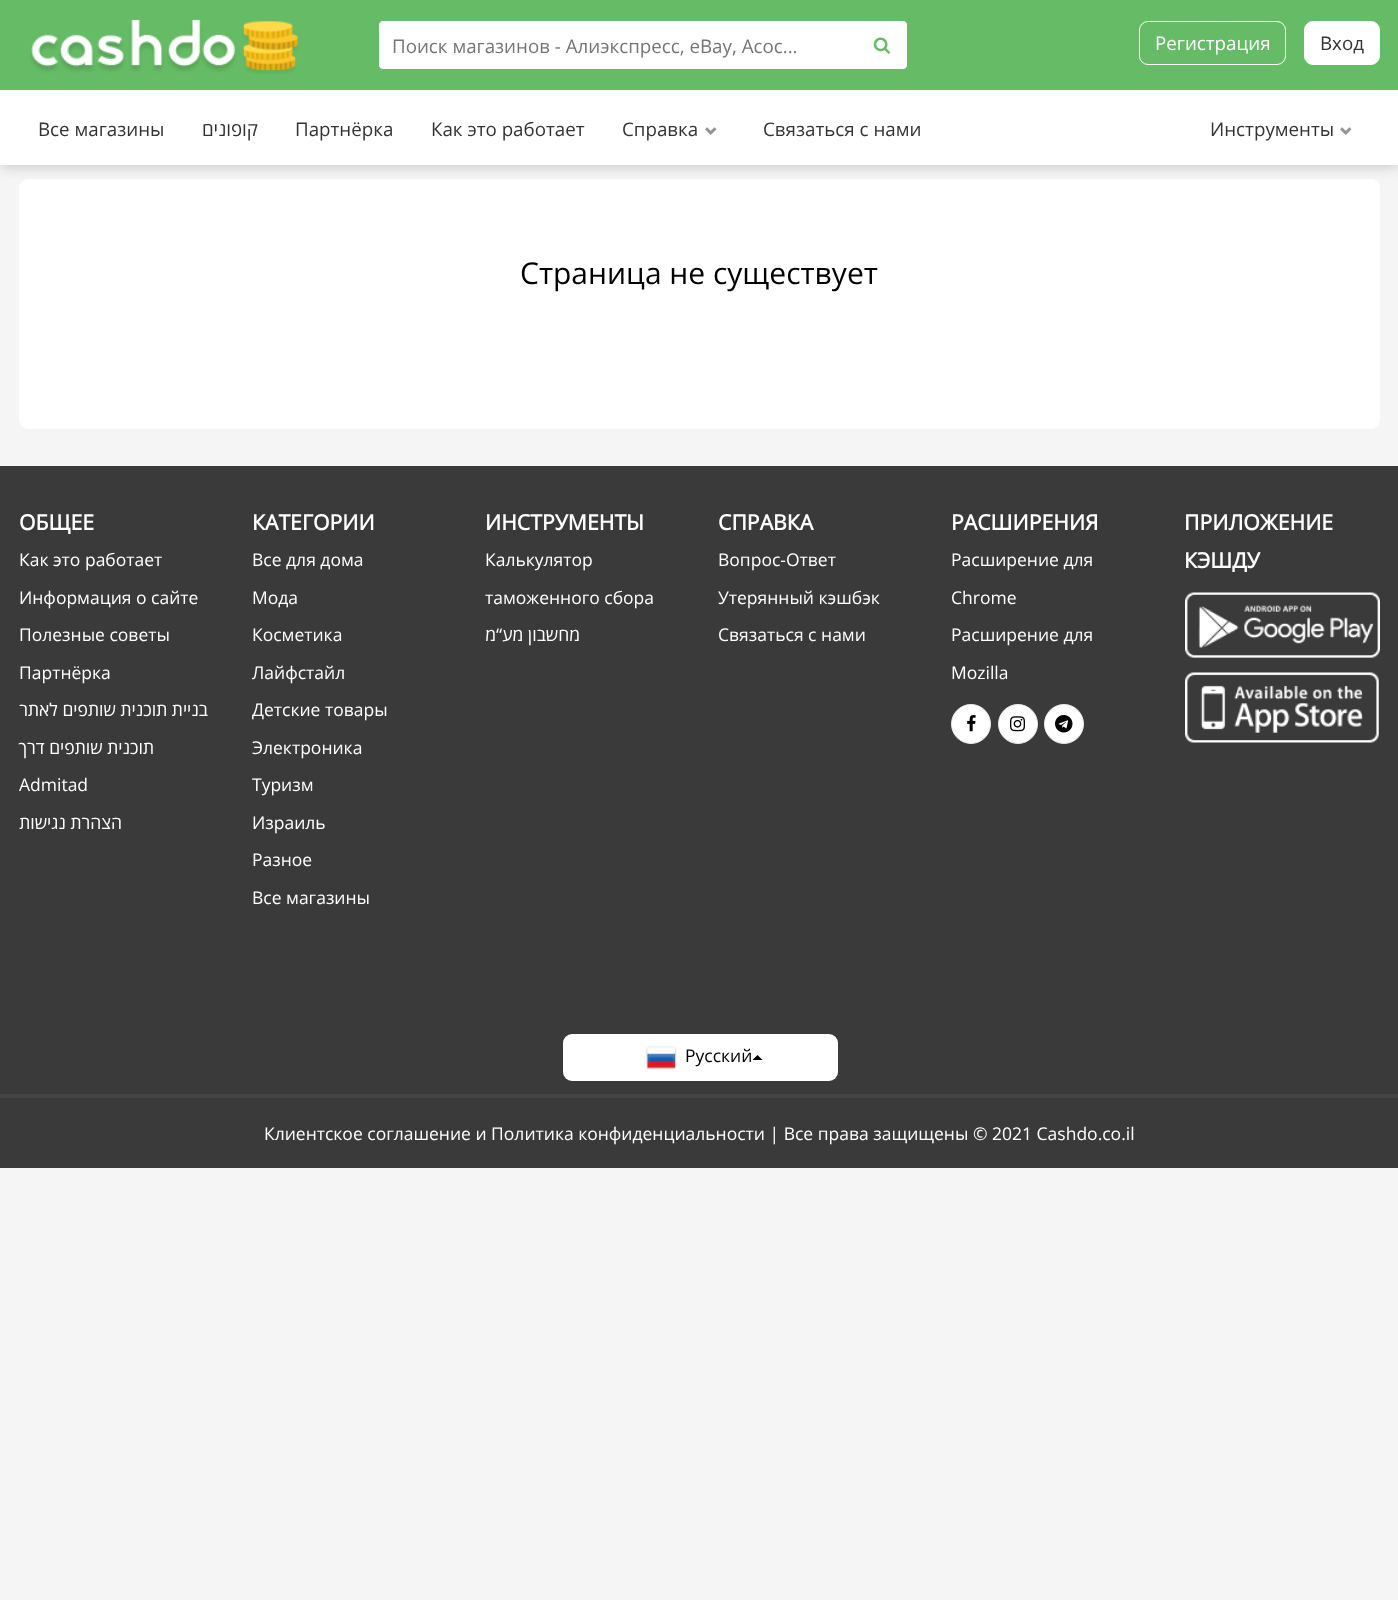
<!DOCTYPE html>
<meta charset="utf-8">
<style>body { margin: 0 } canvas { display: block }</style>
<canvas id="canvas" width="1398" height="1600"></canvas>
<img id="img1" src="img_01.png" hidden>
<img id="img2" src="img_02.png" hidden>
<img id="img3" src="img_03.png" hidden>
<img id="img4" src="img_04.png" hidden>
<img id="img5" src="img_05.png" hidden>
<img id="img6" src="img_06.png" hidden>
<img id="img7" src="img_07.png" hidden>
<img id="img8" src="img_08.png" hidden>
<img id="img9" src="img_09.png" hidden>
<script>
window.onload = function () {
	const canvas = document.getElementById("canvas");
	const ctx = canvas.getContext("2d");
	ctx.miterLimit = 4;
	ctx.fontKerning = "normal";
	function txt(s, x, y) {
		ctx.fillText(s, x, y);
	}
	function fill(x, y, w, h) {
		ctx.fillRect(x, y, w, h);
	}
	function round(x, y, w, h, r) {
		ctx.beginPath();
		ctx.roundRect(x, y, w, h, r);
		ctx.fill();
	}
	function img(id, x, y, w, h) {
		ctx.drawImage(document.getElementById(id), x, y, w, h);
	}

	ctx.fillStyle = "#F5F5F5";
	fill(0, 0, 1398, 1600);
	ctx.fillStyle = "#FFFFFF";
	round(19, 179, 1361, 250, 9);
	ctx.fillStyle = "rgba(0, 0, 0, 0.2)";
	ctx.filter = "blur(7px)";
	ctx.beginPath();
	ctx.rect(0, 1, 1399, 165);
	ctx.fill();
	ctx.filter = "none";
	ctx.fillStyle = "#FFFFFF";
	fill(0, 90, 1398, 75);
	ctx.fillStyle = "#66BC66";
	fill(0, 0, 1398, 90);
	img("img1", 30, 19, 268, 55);
	ctx.fillStyle = "#FFFFFF";
	ctx.beginPath();
	ctx.roundRect(378.5, 20.5, 529, 49, 4.5);
	ctx.fill();
	ctx.strokeStyle = "#66BC66";
	ctx.stroke();
	round(379, 21, 450, 48, 6);
	img("img2", 873, 37, 17, 17);
	ctx.beginPath();
	ctx.roundRect(1139.5, 21.5, 146, 43, 8.5);
	ctx.strokeStyle = "#FFFFFF";
	ctx.stroke();
	ctx.beginPath();
	ctx.roundRect(1304.5, 21.5, 75, 43, 8.5);
	ctx.fill();
	ctx.stroke();
	img("img3", 705, 127, 12, 8);
	img("img3", 1340, 127, 12, 8);
	ctx.fillStyle = "#3A3A3A";
	fill(0, 466, 1398, 702);
	ctx.fillStyle = "#FFFFFF";
	ctx.beginPath();
	ctx.arc(971, 724, 19.5, 0, Math.PI * 2);
	ctx.fill();
	ctx.strokeStyle = "#EAEAEA";
	ctx.stroke();
	img("img4", 967, 715, 9, 17);
	ctx.beginPath();
	ctx.arc(1018, 724, 19.5, 0, Math.PI * 2);
	ctx.fill();
	ctx.stroke();
	img("img5", 1010, 716, 15, 16);
	ctx.beginPath();
	ctx.arc(1064, 724, 19.5, 0, Math.PI * 2);
	ctx.fill();
	ctx.stroke();
	img("img6", 1055, 715, 18, 18);
	img("img7", 1185, 592, 195, 66);
	img("img8", 1185, 672, 194, 71);
	round(563, 1034, 275, 47, 9);
	img("img9", 646, 1046, 31, 24);
	ctx.fillStyle = "#000000";
	ctx.beginPath();
	ctx.moveTo(762.5, 1060);
	ctx.lineTo(752.5, 1060);
	ctx.lineTo(757.5, 1055);
	ctx.closePath();
	ctx.fill();
	ctx.fillStyle = "#444444";
	fill(0, 1094, 1398, 4);
	ctx.font = "18.75px Open Sans";
	ctx.fillStyle = "#757575";
	txt("Поиск магазинов - Алиэкспресс, eBay, Асос...", 392, 53);
	ctx.fillStyle = "#FFFFFF";
	txt("Регистрация", 1155, 50);
	ctx.fillStyle = "#333333";
	txt("Вход", 1320, 50);
	txt("Все магазины", 38, 136);
	ctx.direction = "rtl";
	txt("קופונים", 258, 136);
	ctx.direction = "ltr";
	txt("Партнёрка", 295, 136);
	txt("Как это работает", 431, 136);
	txt("Справка", 622, 136);
	txt("Связаться с нами", 763, 136);
	txt("Инструменты", 1210, 136);
	ctx.font = "30px Open Sans";
	ctx.fillStyle = "#000000";
	txt("Страница не существует", 520, 284);
	ctx.font = "bold 21.25px Open Sans";
	ctx.fillStyle = "#FFFFFF";
	txt("ОБЩЕЕ", 19, 530);
	ctx.font = "17.5px Open Sans";
	txt("Как это работает", 19, 566);
	txt("Информация о сайте", 19, 604);
	txt("Полезные советы", 19, 641);
	txt("Партнёрка", 19, 679);
	ctx.direction = "rtl";
	txt("בניית תוכנית שותפים לאתר", 208, 716);
	txt("תוכנית שותפים דרך", 154, 754);
	ctx.direction = "ltr";
	txt("Admitad", 19, 791);
	ctx.direction = "rtl";
	txt("הצהרת נגישות", 122, 829);
	ctx.direction = "ltr";
	ctx.font = "bold 21.25px Open Sans";
	txt("КАТЕГОРИИ", 252, 530);
	ctx.font = "17.5px Open Sans";
	txt("Все для дома", 252, 566);
	txt("Мода", 252, 604);
	txt("Косметика", 252, 641);
	txt("Лайфстайл", 252, 679);
	txt("Детские товары", 252, 716);
	txt("Электроника", 252, 754);
	txt("Туризм", 252, 791);
	txt("Израиль", 252, 829);
	txt("Разное", 252, 866);
	txt("Все магазины", 252, 904);
	ctx.font = "bold 21.25px Open Sans";
	txt("ИНСТРУМЕНТЫ", 485, 530);
	ctx.font = "17.5px Open Sans";
	txt("Калькулятор", 485, 566);
	txt("таможенного сбора", 485, 604);
	ctx.direction = "rtl";
	txt("מחשבון מע“מ", 580, 641);
	ctx.direction = "ltr";
	ctx.font = "bold 21.25px Open Sans";
	txt("СПРАВКА", 718, 530);
	ctx.font = "17.5px Open Sans";
	txt("Вопрос-Ответ", 718, 566);
	txt("Утерянный кэшбэк", 718, 604);
	txt("Связаться с нами", 718, 641);
	ctx.font = "bold 21.25px Open Sans";
	txt("РАСШИРЕНИЯ", 951, 530);
	ctx.font = "17.5px Open Sans";
	txt("Расширение для", 951, 566);
	txt("Chrome", 951, 604);
	txt("Расширение для", 951, 641);
	txt("Mozilla", 951, 679);
	ctx.font = "bold 21.25px Open Sans";
	txt("ПРИЛОЖЕНИЕ", 1184, 530);
	txt("КЭШДУ", 1184, 568);
	ctx.font = "17.5px Open Sans";
	ctx.fillStyle = "#000000";
	txt("Русский", 685, 1062);
	ctx.fillStyle = "#FFFFFF";
	txt("Клиентское соглашение и Политика конфиденциальности | Все права защищены © 2021 Cashdo.co.il", 264, 1140);
};
</script>
